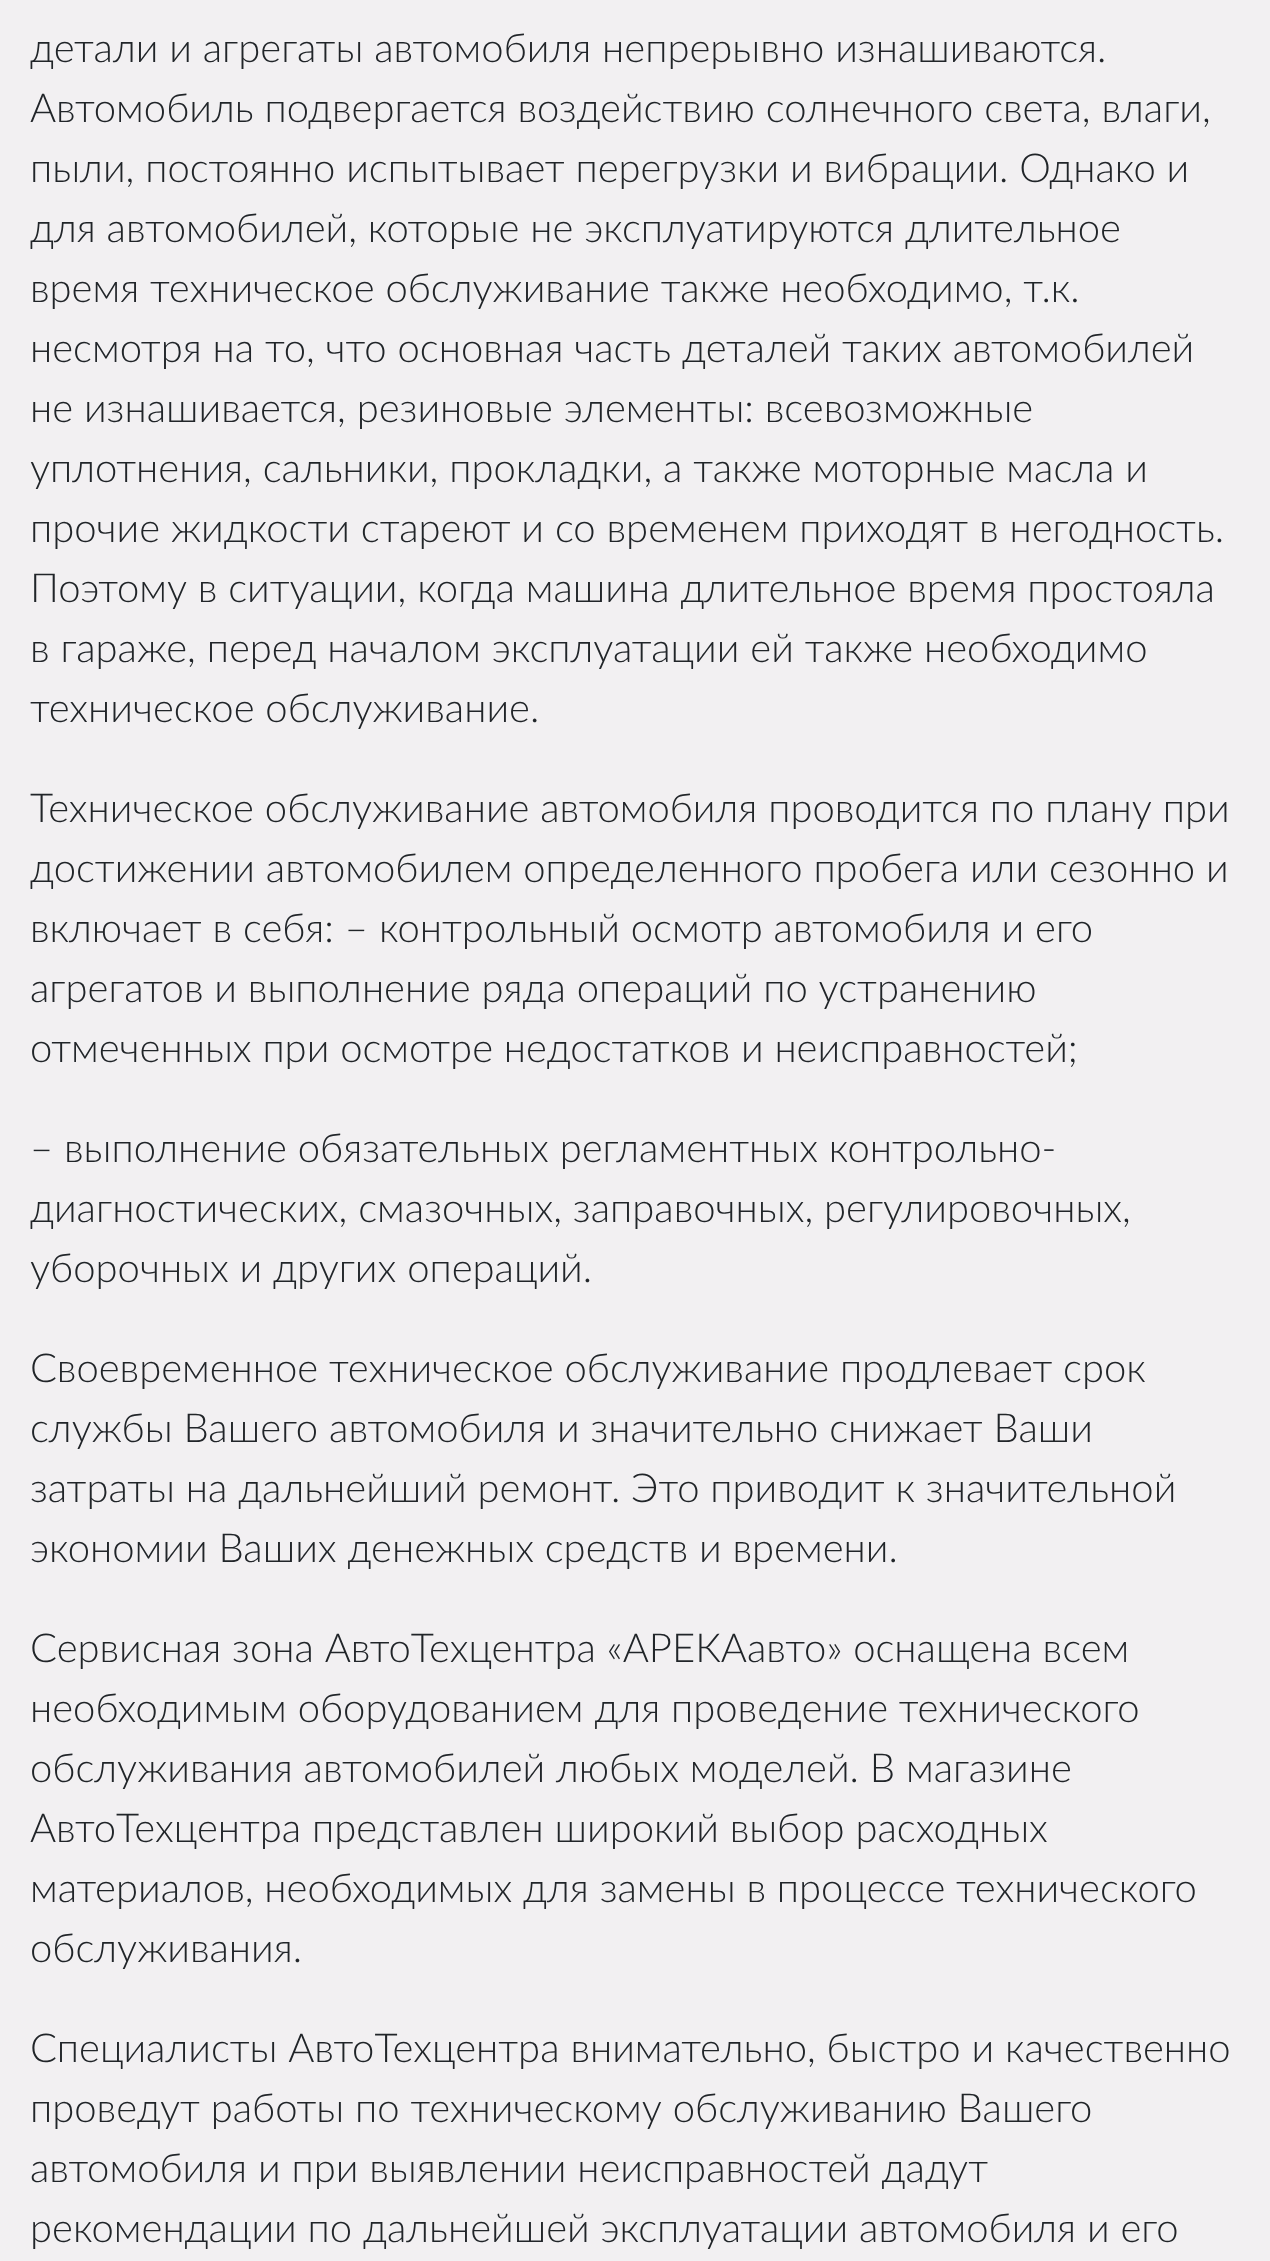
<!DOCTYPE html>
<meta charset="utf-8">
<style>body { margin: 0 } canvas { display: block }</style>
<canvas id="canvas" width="1270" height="2261"></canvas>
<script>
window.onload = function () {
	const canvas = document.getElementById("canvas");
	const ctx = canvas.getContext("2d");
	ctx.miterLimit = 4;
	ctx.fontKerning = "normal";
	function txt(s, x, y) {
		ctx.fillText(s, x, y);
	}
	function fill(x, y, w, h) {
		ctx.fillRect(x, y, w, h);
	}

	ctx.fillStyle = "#F2F0F2";
	fill(0, 0, 1270, 2261);
	ctx.font = "300 40px Lato";
	ctx.fillStyle = "#212529";
	txt("детали и агрегаты автомобиля непрерывно изнашиваются.", 30, 62);
	txt("Автомобиль подвергается воздействию солнечного света, влаги,", 30, 122);
	txt("пыли, постоянно испытывает перегрузки и вибрации. Однако и", 30, 182);
	txt("для автомобилей, которые не эксплуатируются длительное", 30, 242);
	txt("время техническое обслуживание также необходимо, т.к.", 30, 302);
	txt("несмотря на то, что основная часть деталей таких автомобилей", 30, 362);
	txt("не изнашивается, резиновые элементы: всевозможные", 30, 422);
	txt("уплотнения, сальники, прокладки, а также моторные масла и", 30, 482);
	txt("прочие жидкости стареют и со временем приходят в негодность.", 30, 542);
	txt("Поэтому в ситуации, когда машина длительное время простояла", 30, 602);
	txt("в гараже, перед началом эксплуатации ей также необходимо", 30, 662);
	txt("техническое обслуживание.", 30, 722);
	txt("Техническое обслуживание автомобиля проводится по плану при", 30, 822);
	txt("достижении автомобилем определенного пробега или сезонно и", 30, 882);
	txt("включает в себя: – контрольный осмотр автомобиля и его", 30, 942);
	txt("агрегатов и выполнение ряда операций по устранению", 30, 1002);
	txt("отмеченных при осмотре недостатков и неисправностей;", 30, 1062);
	txt("– выполнение обязательных регламентных контрольно-", 30, 1162);
	txt("диагностических, смазочных, заправочных, регулировочных,", 30, 1222);
	txt("уборочных и других операций.", 30, 1282);
	txt("Своевременное техническое обслуживание продлевает срок", 30, 1382);
	txt("службы Вашего автомобиля и значительно снижает Ваши", 30, 1442);
	txt("затраты на дальнейший ремонт. Это приводит к значительной", 30, 1502);
	txt("экономии Ваших денежных средств и времени.", 30, 1562);
	txt("Сервисная зона АвтоТехцентра «АРЕКАавто» оснащена всем", 30, 1662);
	txt("необходимым оборудованием для проведение технического", 30, 1722);
	txt("обслуживания автомобилей любых моделей. В магазине", 30, 1782);
	txt("АвтоТехцентра представлен широкий выбор расходных", 30, 1842);
	txt("материалов, необходимых для замены в процессе технического", 30, 1902);
	txt("обслуживания.", 30, 1962);
	txt("Специалисты АвтоТехцентра внимательно, быстро и качественно", 30, 2062);
	txt("проведут работы по техническому обслуживанию Вашего", 30, 2122);
	txt("автомобиля и при выявлении неисправностей дадут", 30, 2182);
	txt("рекомендации по дальнейшей эксплуатации автомобиля и его", 30, 2242);
};
</script>
